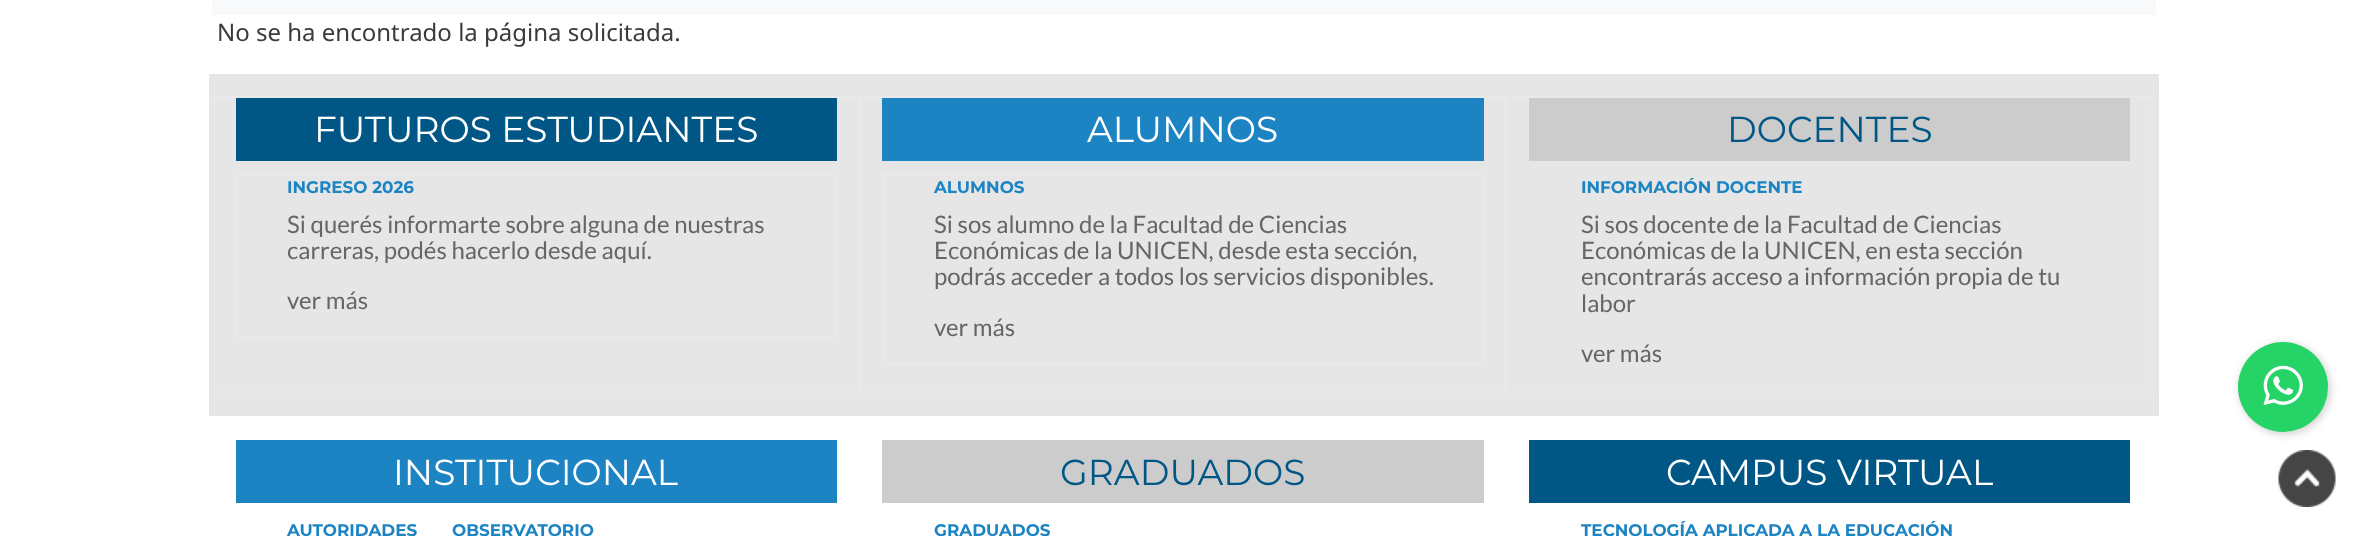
<!DOCTYPE html>
<meta charset="utf-8">
<style>body { margin: 0 } canvas { display: block }</style>
<canvas id="canvas" width="2365" height="536"></canvas>
<img id="img1" src="img_01.png" hidden>
<img id="img2" src="img_02.png" hidden>
<script>
window.onload = function () {
	const canvas = document.getElementById("canvas");
	const ctx = canvas.getContext("2d");
	ctx.miterLimit = 4;
	ctx.fontKerning = "normal";
	function txt(s, x, y) {
		ctx.fillText(s, x, y);
	}
	function fill(x, y, w, h) {
		ctx.fillRect(x, y, w, h);
	}
	function img(id, x, y, w, h) {
		ctx.drawImage(document.getElementById(id), x, y, w, h);
	}

	ctx.fillStyle = "#FFFFFF";
	fill(0, 0, 2365, 536);
	ctx.fillStyle = "#F8F9FA";
	fill(212, 0, 1944, 15);
	ctx.fillStyle = "rgba(0, 0, 0, 0.2)";
	ctx.filter = "blur(4px)";
	ctx.beginPath();
	ctx.roundRect(2240, 344, 90, 90, 45);
	ctx.fill();
	ctx.filter = "none";
	ctx.fillStyle = "#25D366";
	ctx.beginPath();
	ctx.arc(2283, 387, 45, 0, Math.PI * 2);
	ctx.fill();
	img("img1", 2263, 365, 40, 41);
	ctx.fillStyle = "#E6E6E6";
	fill(209, 74, 1950, 342);
	ctx.strokeStyle = "#E9E9E9";
	ctx.lineWidth = 2;
	ctx.strokeRect(214, 97, 645, 295);
	ctx.fillStyle = "#005785";
	fill(236, 98, 601, 63);
	ctx.strokeRect(237, 174, 599, 164);
	ctx.strokeRect(861, 97, 644, 295);
	ctx.fillStyle = "#1D84C3";
	fill(882, 98, 602, 63);
	ctx.strokeRect(883, 174, 600, 190);
	ctx.strokeRect(1507, 97, 645, 295);
	ctx.fillStyle = "#CCCCCC";
	fill(1529, 98, 601, 63);
	ctx.fillStyle = "#1D84C3";
	fill(236, 440, 601, 63);
	ctx.fillStyle = "#CCCCCC";
	fill(882, 440, 602, 63);
	ctx.fillStyle = "#005785";
	fill(1529, 440, 601, 63);
	img("img2", 2278, 450, 58, 57);
	ctx.font = "24px Noto Sans";
	ctx.fillStyle = "#3B3B3B";
	txt("No se ha encontrado la página solicitada.", 217, 41);
	ctx.font = "36px Montserrat";
	ctx.fillStyle = "#FFFFFF";
	txt("FUTUROS ESTUDIANTES", 314, 142);
	ctx.font = "bold 16.8px Montserrat";
	ctx.fillStyle = "#1D84C3";
	txt("INGRESO 2026", 287, 193);
	ctx.font = "24px Lato";
	ctx.fillStyle = "#666666";
	txt("Si querés informarte sobre alguna de nuestras", 287, 233);
	txt("carreras, podés hacerlo desde aquí.", 287, 259);
	txt("ver más", 287, 309);
	ctx.font = "36px Montserrat";
	ctx.fillStyle = "#FFFFFF";
	txt("ALUMNOS", 1087, 142);
	ctx.font = "bold 16.8px Montserrat";
	ctx.fillStyle = "#1D84C3";
	txt("ALUMNOS", 934, 193);
	ctx.font = "24px Lato";
	ctx.fillStyle = "#666666";
	txt("Si sos alumno de la Facultad de Ciencias", 934, 233);
	txt("Económicas de la UNICEN, desde esta sección,", 934, 259);
	txt("podrás acceder a todos los servicios disponibles.", 934, 285);
	txt("ver más", 934, 336);
	ctx.font = "36px Montserrat";
	ctx.fillStyle = "#005785";
	txt("DOCENTES", 1727, 142);
	ctx.font = "bold 16.8px Montserrat";
	ctx.fillStyle = "#1D84C3";
	txt("INFORMACIÓN DOCENTE", 1581, 193);
	ctx.font = "24px Lato";
	ctx.fillStyle = "#666666";
	txt("Si sos docente de la Facultad de Ciencias", 1581, 233);
	txt("Económicas de la UNICEN, en esta sección", 1581, 259);
	txt("encontrarás acceso a información propia de tu", 1581, 285);
	txt("labor", 1581, 312);
	txt("ver más", 1581, 362);
	ctx.font = "36px Montserrat";
	ctx.fillStyle = "#FFFFFF";
	txt("INSTITUCIONAL", 393, 485);
	ctx.font = "bold 16.8px Montserrat";
	ctx.fillStyle = "#1D84C3";
	txt("AUTORIDADES", 287, 536);
	txt("OBSERVATORIO", 452, 536);
	ctx.font = "36px Montserrat";
	ctx.fillStyle = "#005785";
	txt("GRADUADOS", 1060, 485);
	ctx.font = "bold 16.8px Montserrat";
	ctx.fillStyle = "#1D84C3";
	txt("GRADUADOS", 934, 536);
	ctx.font = "36px Montserrat";
	ctx.fillStyle = "#FFFFFF";
	txt("CAMPUS VIRTUAL", 1666, 485);
	ctx.font = "bold 16.8px Montserrat";
	ctx.fillStyle = "#1D84C3";
	txt("TECNOLOGÍA APLICADA A LA EDUCACIÓN", 1581, 536);
};
</script>
